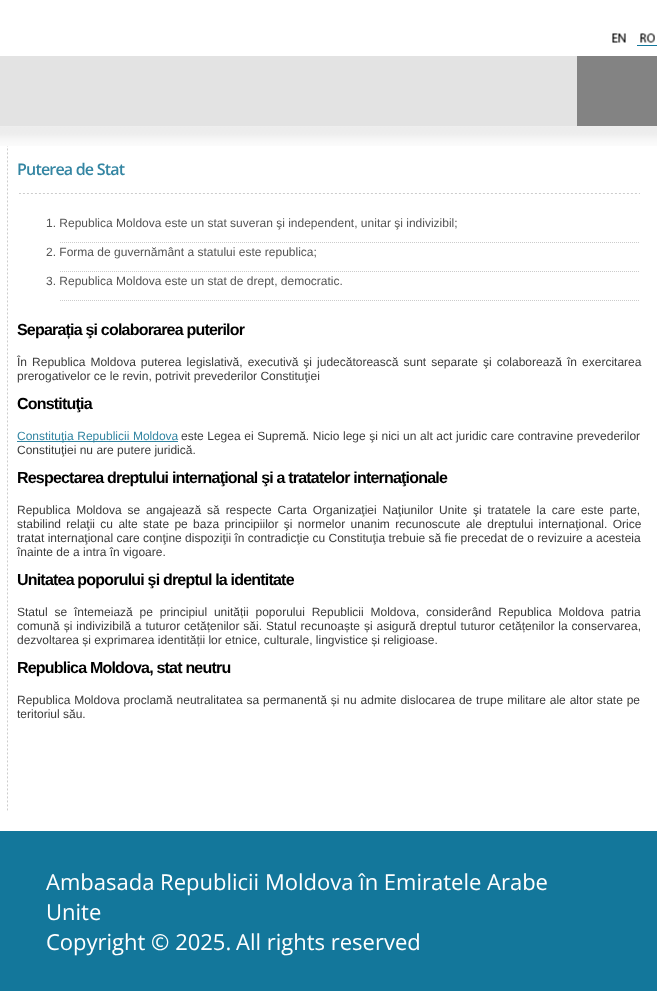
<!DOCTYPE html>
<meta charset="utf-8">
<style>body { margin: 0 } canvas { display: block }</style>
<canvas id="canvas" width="657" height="991"></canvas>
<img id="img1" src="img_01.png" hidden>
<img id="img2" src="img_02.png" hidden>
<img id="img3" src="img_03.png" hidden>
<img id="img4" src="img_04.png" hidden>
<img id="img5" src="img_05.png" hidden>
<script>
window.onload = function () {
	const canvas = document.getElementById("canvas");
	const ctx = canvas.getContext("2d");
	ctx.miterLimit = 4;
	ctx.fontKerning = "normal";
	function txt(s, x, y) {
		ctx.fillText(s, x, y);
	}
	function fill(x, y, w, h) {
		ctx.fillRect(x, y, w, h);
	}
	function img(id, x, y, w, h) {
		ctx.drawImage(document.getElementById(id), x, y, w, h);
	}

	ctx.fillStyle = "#FFFFFF";
	fill(0, 0, 657, 991);
	img("img1", 612, 33, 14, 10);
	ctx.fillStyle = "#13779B";
	fill(637, 45, 20, 1);
	img("img2", 640, 33, 15, 10);
	ctx.fillStyle = "#E3E3E3";
	fill(0, 56, 577, 70);
	ctx.fillStyle = "#838383";
	fill(577, 56, 80, 70);
	img("img3", 0, 126, 657, 20);
	img("img4", 7, 146, 1, 665);
	img("img5", 19, 193, 621, 1);
	ctx.beginPath();
	ctx.moveTo(60, 242.5);
	ctx.lineTo(640, 242.5);
	ctx.strokeStyle = "#CCCCCC";
	ctx.setLineDash([1, 1]);
	ctx.stroke();
	ctx.beginPath();
	ctx.moveTo(60, 271.5);
	ctx.lineTo(640, 271.5);
	ctx.stroke();
	ctx.beginPath();
	ctx.moveTo(60, 300.5);
	ctx.lineTo(640, 300.5);
	ctx.stroke();
	ctx.fillStyle = "#3385A2";
	fill(17, 441, 161, 1);
	ctx.fillStyle = "#13779B";
	fill(0, 831, 657, 160);
	ctx.letterSpacing = "-0.8px";
	ctx.font = "600 16px Open Sans";
	ctx.fillStyle = "#3385A2";
	txt("Puterea de Stat", 17, 175);
	ctx.letterSpacing = "0px";
	ctx.font = "12px Liberation Sans";
	ctx.fillStyle = "#555555";
	txt("1. Republica Moldova este un stat suveran şi independent, unitar şi indivizibil;", 46, 227);
	txt("2. Forma de guvernământ a statului este republica;", 46, 256);
	txt("3. Republica Moldova este un stat de drept, democratic.", 46, 285);
	ctx.letterSpacing = "-0.8px";
	ctx.font = "bold 16px Liberation Sans";
	ctx.fillStyle = "#000000";
	txt("Separația şi colaborarea puterilor", 17, 335);
	ctx.letterSpacing = "0px";
	ctx.wordSpacing = "1.7px";
	ctx.font = "12px Liberation Sans";
	ctx.fillStyle = "#3B3B3B";
	txt("În Republica Moldova puterea legislativă, executivă şi judecătorească sunt separate şi colaborează în exercitarea", 17, 366);
	ctx.wordSpacing = "0px";
	txt("prerogativelor ce le revin, potrivit prevederilor Constituţiei", 17, 380);
	ctx.letterSpacing = "-0.8px";
	ctx.font = "bold 16px Liberation Sans";
	ctx.fillStyle = "#000000";
	txt("Constituţia", 17, 409);
	ctx.letterSpacing = "0px";
	ctx.wordSpacing = "0.25px";
	ctx.font = "12px Liberation Sans";
	ctx.fillStyle = "#3385A2";
	txt("Constituţia Republicii Moldova", 17, 440);
	ctx.fillStyle = "#3B3B3B";
	txt("este Legea ei Supremă. Nicio lege şi nici un alt act juridic care contravine prevederilor", 181, 440);
	ctx.wordSpacing = "0px";
	txt("Constituţiei nu are putere juridică.", 17, 454);
	ctx.letterSpacing = "-0.8px";
	ctx.font = "bold 16px Liberation Sans";
	ctx.fillStyle = "#000000";
	txt("Respectarea dreptului internaţional şi a tratatelor internaţionale", 17, 483);
	ctx.letterSpacing = "0px";
	ctx.wordSpacing = "2.5px";
	ctx.font = "12px Liberation Sans";
	ctx.fillStyle = "#3B3B3B";
	txt("Republica Moldova se angajează să respecte Carta Organizaţiei Naţiunilor Unite şi tratatele la care este parte,", 17, 514);
	ctx.wordSpacing = "2px";
	txt("stabilind relaţii cu alte state pe baza principiilor şi normelor unanim recunoscute ale dreptului internaţional. Orice", 17, 528);
	ctx.wordSpacing = "0px";
	txt("tratat internaţional care conţine dispoziţii în contradicţie cu Constituţia trebuie să fie precedat de o revizuire a acesteia", 17, 542);
	txt("înainte de a intra în vigoare.", 17, 556);
	ctx.letterSpacing = "-0.8px";
	ctx.font = "bold 16px Liberation Sans";
	ctx.fillStyle = "#000000";
	txt("Unitatea poporului şi dreptul la identitate", 17, 585);
	ctx.letterSpacing = "0px";
	ctx.wordSpacing = "3.5px";
	ctx.font = "12px Liberation Sans";
	ctx.fillStyle = "#3B3B3B";
	txt("Statul se întemeiază pe principiul unității poporului Republicii Moldova, considerând Republica Moldova patria", 17, 616);
	ctx.wordSpacing = "0.6px";
	txt("comună și indivizibilă a tuturor cetățenilor săi. Statul recunoaște și asigură dreptul tuturor cetățenilor la conservarea,", 17, 630);
	ctx.wordSpacing = "0px";
	txt("dezvoltarea și exprimarea identității lor etnice, culturale, lingvistice și religioase.", 17, 644);
	ctx.letterSpacing = "-0.8px";
	ctx.font = "bold 16px Liberation Sans";
	ctx.fillStyle = "#000000";
	txt("Republica Moldova, stat neutru", 17, 673);
	ctx.letterSpacing = "0px";
	ctx.wordSpacing = "0.5px";
	ctx.font = "12px Liberation Sans";
	ctx.fillStyle = "#3B3B3B";
	txt("Republica Moldova proclamă neutralitatea sa permanentă și nu admite dislocarea de trupe militare ale altor state pe", 17, 704);
	ctx.wordSpacing = "0px";
	txt("teritoriul său.", 17, 718);
	ctx.font = "22px Open Sans";
	ctx.fillStyle = "#FFFFFF";
	txt("Ambasada Republicii Moldova în Emiratele Arabe", 46, 890);
	txt("Unite", 46, 920);
	txt("Copyright © 2025.", 46, 950);
	txt("All rights reserved", 236, 950);
};
</script>
